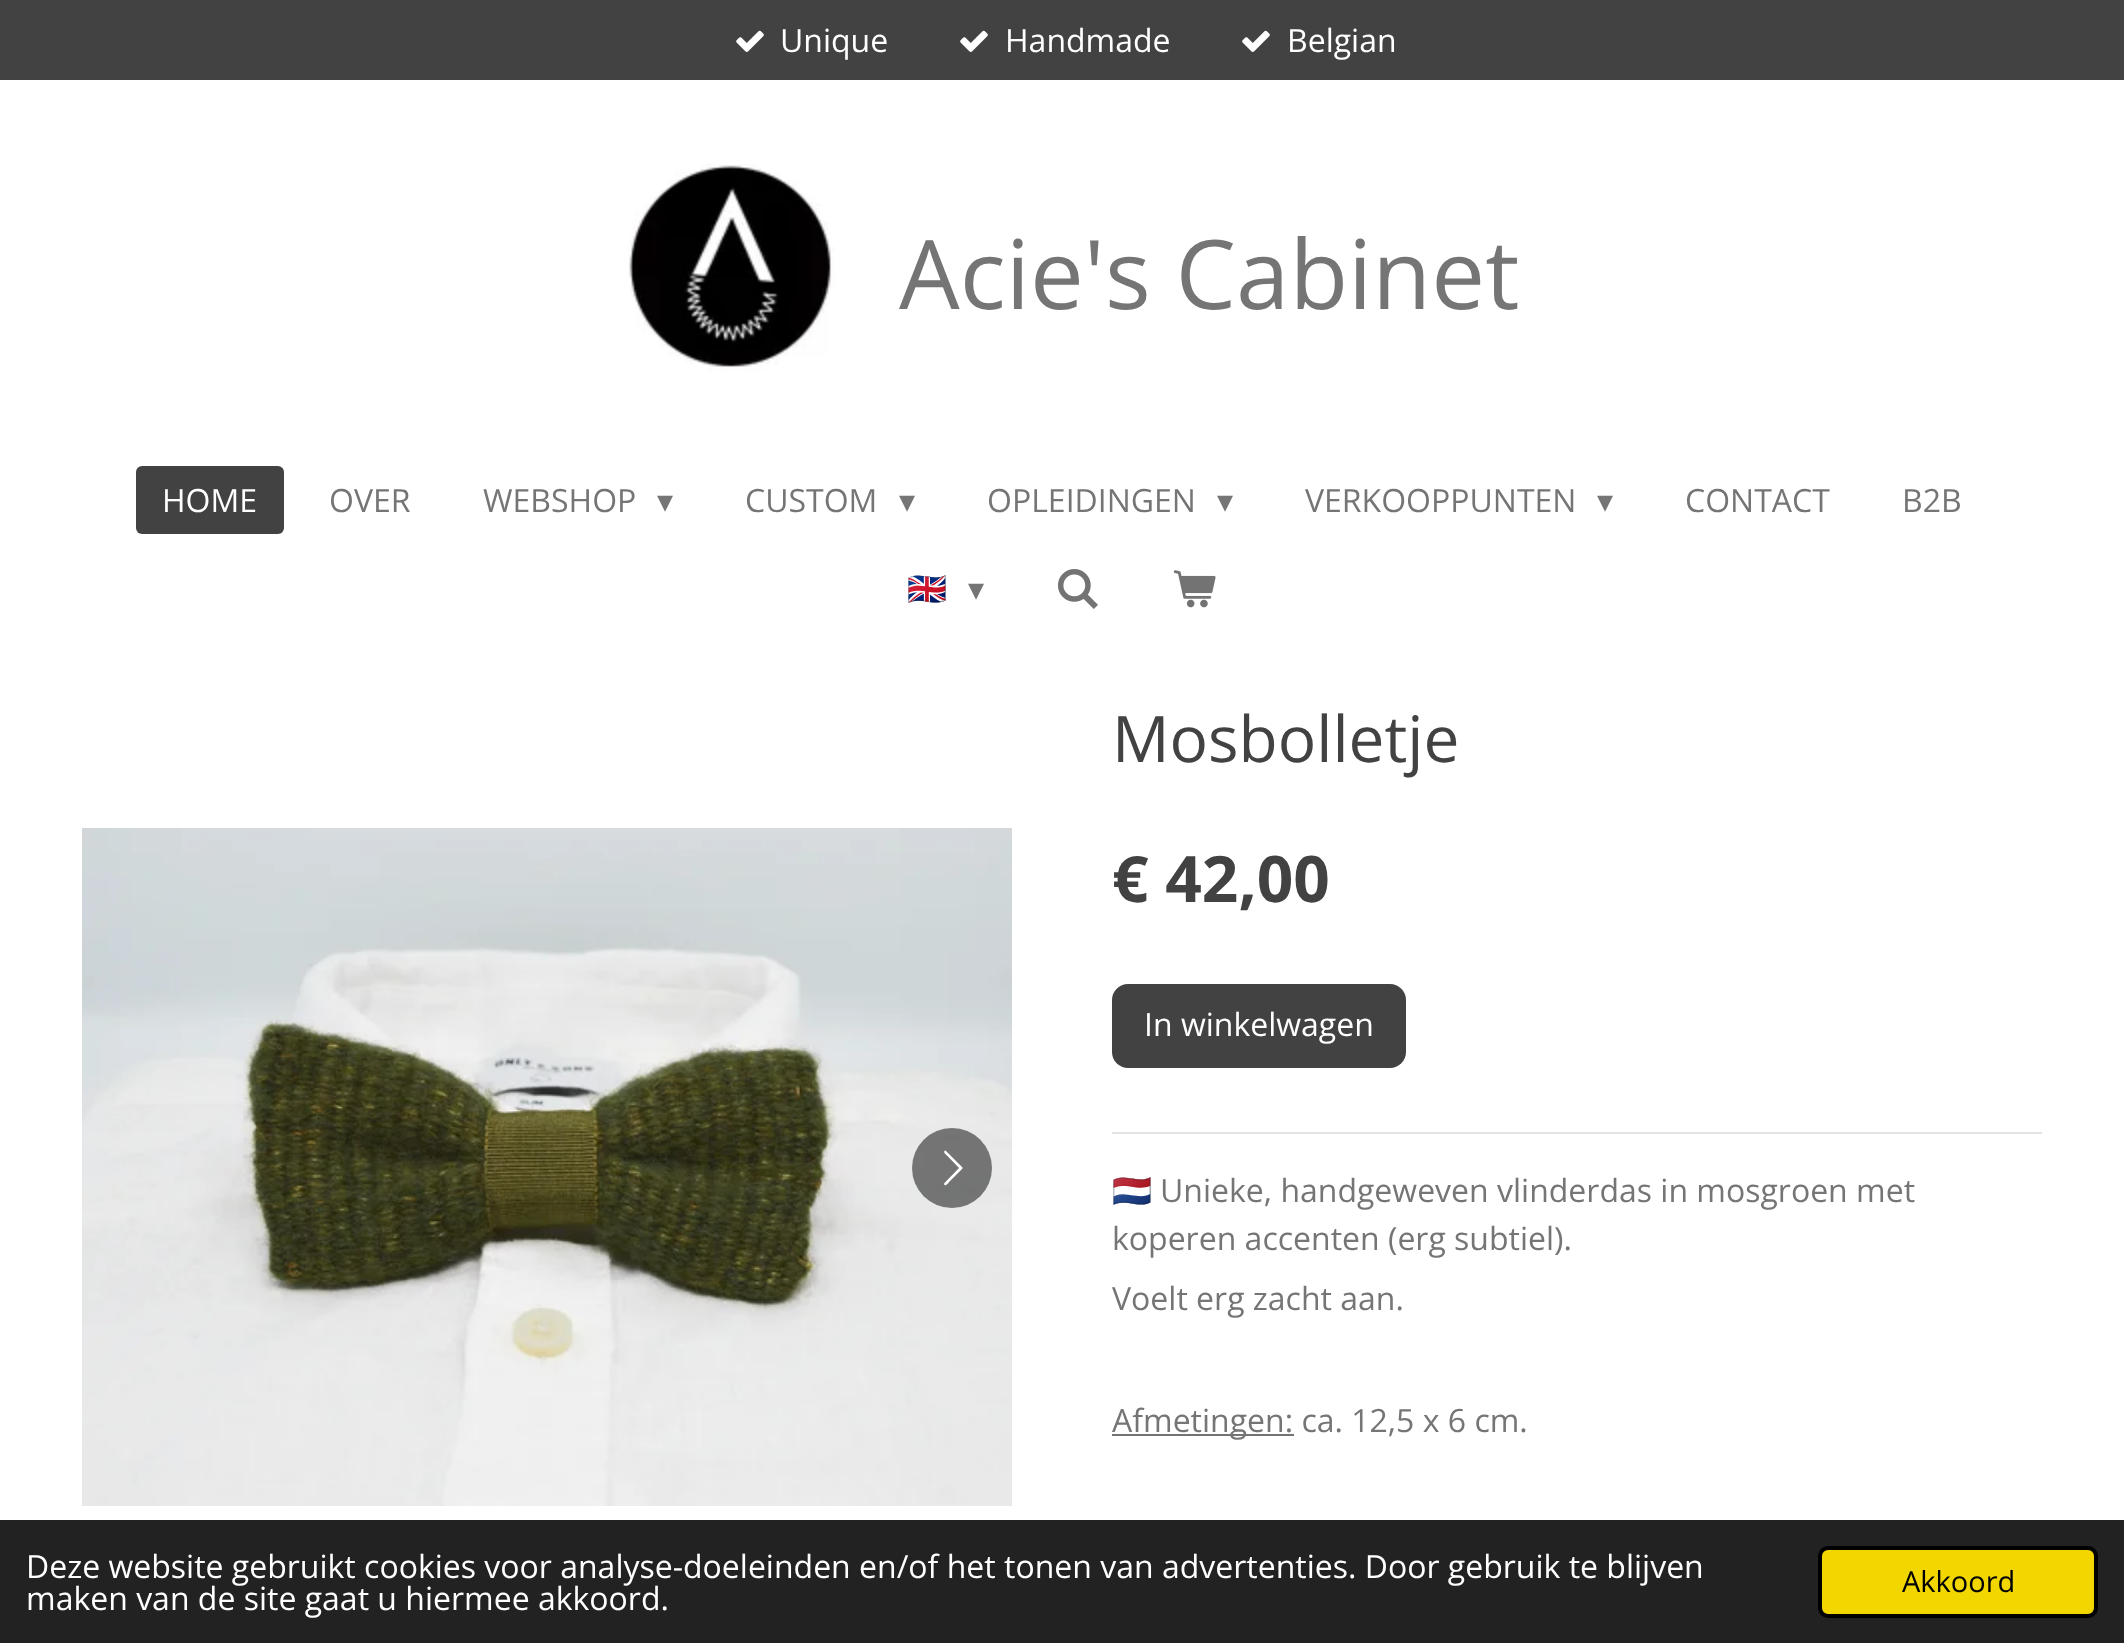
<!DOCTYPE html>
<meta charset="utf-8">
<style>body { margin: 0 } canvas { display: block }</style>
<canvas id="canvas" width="2124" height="1643"></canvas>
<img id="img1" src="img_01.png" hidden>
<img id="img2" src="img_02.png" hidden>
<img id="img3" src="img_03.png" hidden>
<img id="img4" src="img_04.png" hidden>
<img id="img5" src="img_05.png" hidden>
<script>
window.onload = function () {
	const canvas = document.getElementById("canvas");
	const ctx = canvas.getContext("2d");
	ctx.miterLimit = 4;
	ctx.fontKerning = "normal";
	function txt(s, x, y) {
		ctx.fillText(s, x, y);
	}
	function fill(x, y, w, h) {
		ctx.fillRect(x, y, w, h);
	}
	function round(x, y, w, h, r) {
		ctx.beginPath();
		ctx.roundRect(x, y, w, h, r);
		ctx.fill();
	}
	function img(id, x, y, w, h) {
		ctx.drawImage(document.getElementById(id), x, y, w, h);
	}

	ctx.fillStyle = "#FFFFFF";
	fill(0, 0, 2124, 1643);
	ctx.fillStyle = "#424242";
	fill(0, 0, 2124, 80);
	img("img1", 736, 30, 28, 22);
	img("img1", 960, 30, 28, 22);
	img("img1", 1242, 30, 28, 22);
	img("img2", 629, 164, 206, 207);
	round(136, 466, 148, 68, 6);
	img("img3", 1058, 569, 40, 40);
	img("img4", 1173, 570, 43, 38);
	img("img5", 82, 828, 930, 678);
	ctx.fillStyle = "rgba(0, 0, 0, 0.5)";
	ctx.beginPath();
	ctx.arc(952, 1168, 40, 0, Math.PI * 2);
	ctx.fill();
	ctx.fillStyle = "#FFFFFF";
	ctx.beginPath();
	ctx.moveTo(944.5, 1183);
	ctx.lineTo(959, 1168);
	ctx.lineTo(947, 1155.5);
	ctx.bezierCurveTo(946.5, 1155, 942, 1151.5, 945.5, 1150.5);
	ctx.lineTo(946, 1151);
	ctx.lineTo(962.5, 1167.5);
	ctx.lineTo(962.5, 1168.5);
	ctx.lineTo(949, 1182);
	ctx.bezierCurveTo(949, 1182.5, 945, 1187.5, 944, 1184);
	ctx.closePath();
	ctx.fill();
	ctx.fillStyle = "#424242";
	round(1112, 984, 294, 84, 16);
	ctx.fillStyle = "#E3E3E3";
	fill(1112, 1132, 930, 2);
	ctx.fillStyle = "#737373";
	fill(1112, 1434, 182, 2);
	ctx.fillStyle = "#222222";
	fill(0, 1520, 2124, 123);
	ctx.fillStyle = "#F1D600";
	ctx.beginPath();
	ctx.roundRect(1820, 1548, 276, 68, 8);
	ctx.fill();
	ctx.strokeStyle = "#000000";
	ctx.lineWidth = 4;
	ctx.stroke();
	ctx.font = "32px Open Sans";
	ctx.fillStyle = "#FFFFFF";
	txt("Unique", 780, 52);
	txt("Handmade", 1005, 52);
	txt("Belgian", 1287, 52);
	ctx.font = "96px Open Sans";
	ctx.fillStyle = "#757575";
	txt("Acie's Cabinet", 899, 309);
	ctx.font = "32px Open Sans";
	ctx.fillStyle = "#FFFFFF";
	txt("HOME", 162, 512);
	ctx.fillStyle = "#757575";
	txt("OVER", 329, 512);
	txt("WEBSHOP", 483, 512);
	ctx.font = "32px DejaVu Sans";
	txt("▾", 657, 512);
	ctx.font = "32px Open Sans";
	txt("CUSTOM", 745, 512);
	ctx.font = "32px DejaVu Sans";
	txt("▾", 899, 512);
	ctx.font = "32px Open Sans";
	txt("OPLEIDINGEN", 987, 512);
	ctx.font = "32px DejaVu Sans";
	txt("▾", 1217, 512);
	ctx.font = "32px Open Sans";
	txt("VERKOOPPUNTEN", 1305, 512);
	ctx.font = "32px DejaVu Sans";
	txt("▾", 1597, 512);
	ctx.font = "32px Open Sans";
	txt("CONTACT", 1685, 512);
	txt("B2B", 1902, 512);
	ctx.font = "32px Noto Color Emoji";
	txt("🇬🇧", 907, 600);
	ctx.font = "32px DejaVu Sans";
	txt("▾", 968, 600);
	ctx.font = "64px Open Sans";
	ctx.fillStyle = "#424242";
	txt("Mosbolletje", 1112, 762);
	ctx.font = "bold 64px Open Sans";
	txt("€ 42,00", 1112, 902);
	ctx.font = "32px Open Sans";
	ctx.fillStyle = "#FFFFFF";
	txt("In winkelwagen", 1144, 1036);
	ctx.font = "32px Noto Color Emoji";
	ctx.fillStyle = "#757575";
	txt("🇳🇱", 1112, 1202);
	ctx.font = "32px Open Sans";
	txt("Unieke, handgeweven vlinderdas in mosgroen met", 1160, 1202);
	txt("koperen accenten (erg subtiel).", 1112, 1250);
	txt("Voelt erg zacht aan.", 1112, 1310);
	txt("Afmetingen: ca. 12,5 x 6 cm.", 1112, 1432);
	ctx.fillStyle = "#FFFFFF";
	txt("Deze website gebruikt cookies voor analyse-doeleinden en/of het tonen van advertenties. Door gebruik te blijven", 26, 1578);
	txt("maken van de site gaat u hiermee akkoord.", 26, 1610);
	ctx.font = "29px Open Sans";
	ctx.fillStyle = "#000000";
	txt("Akkoord", 1902, 1592);
};
</script>
